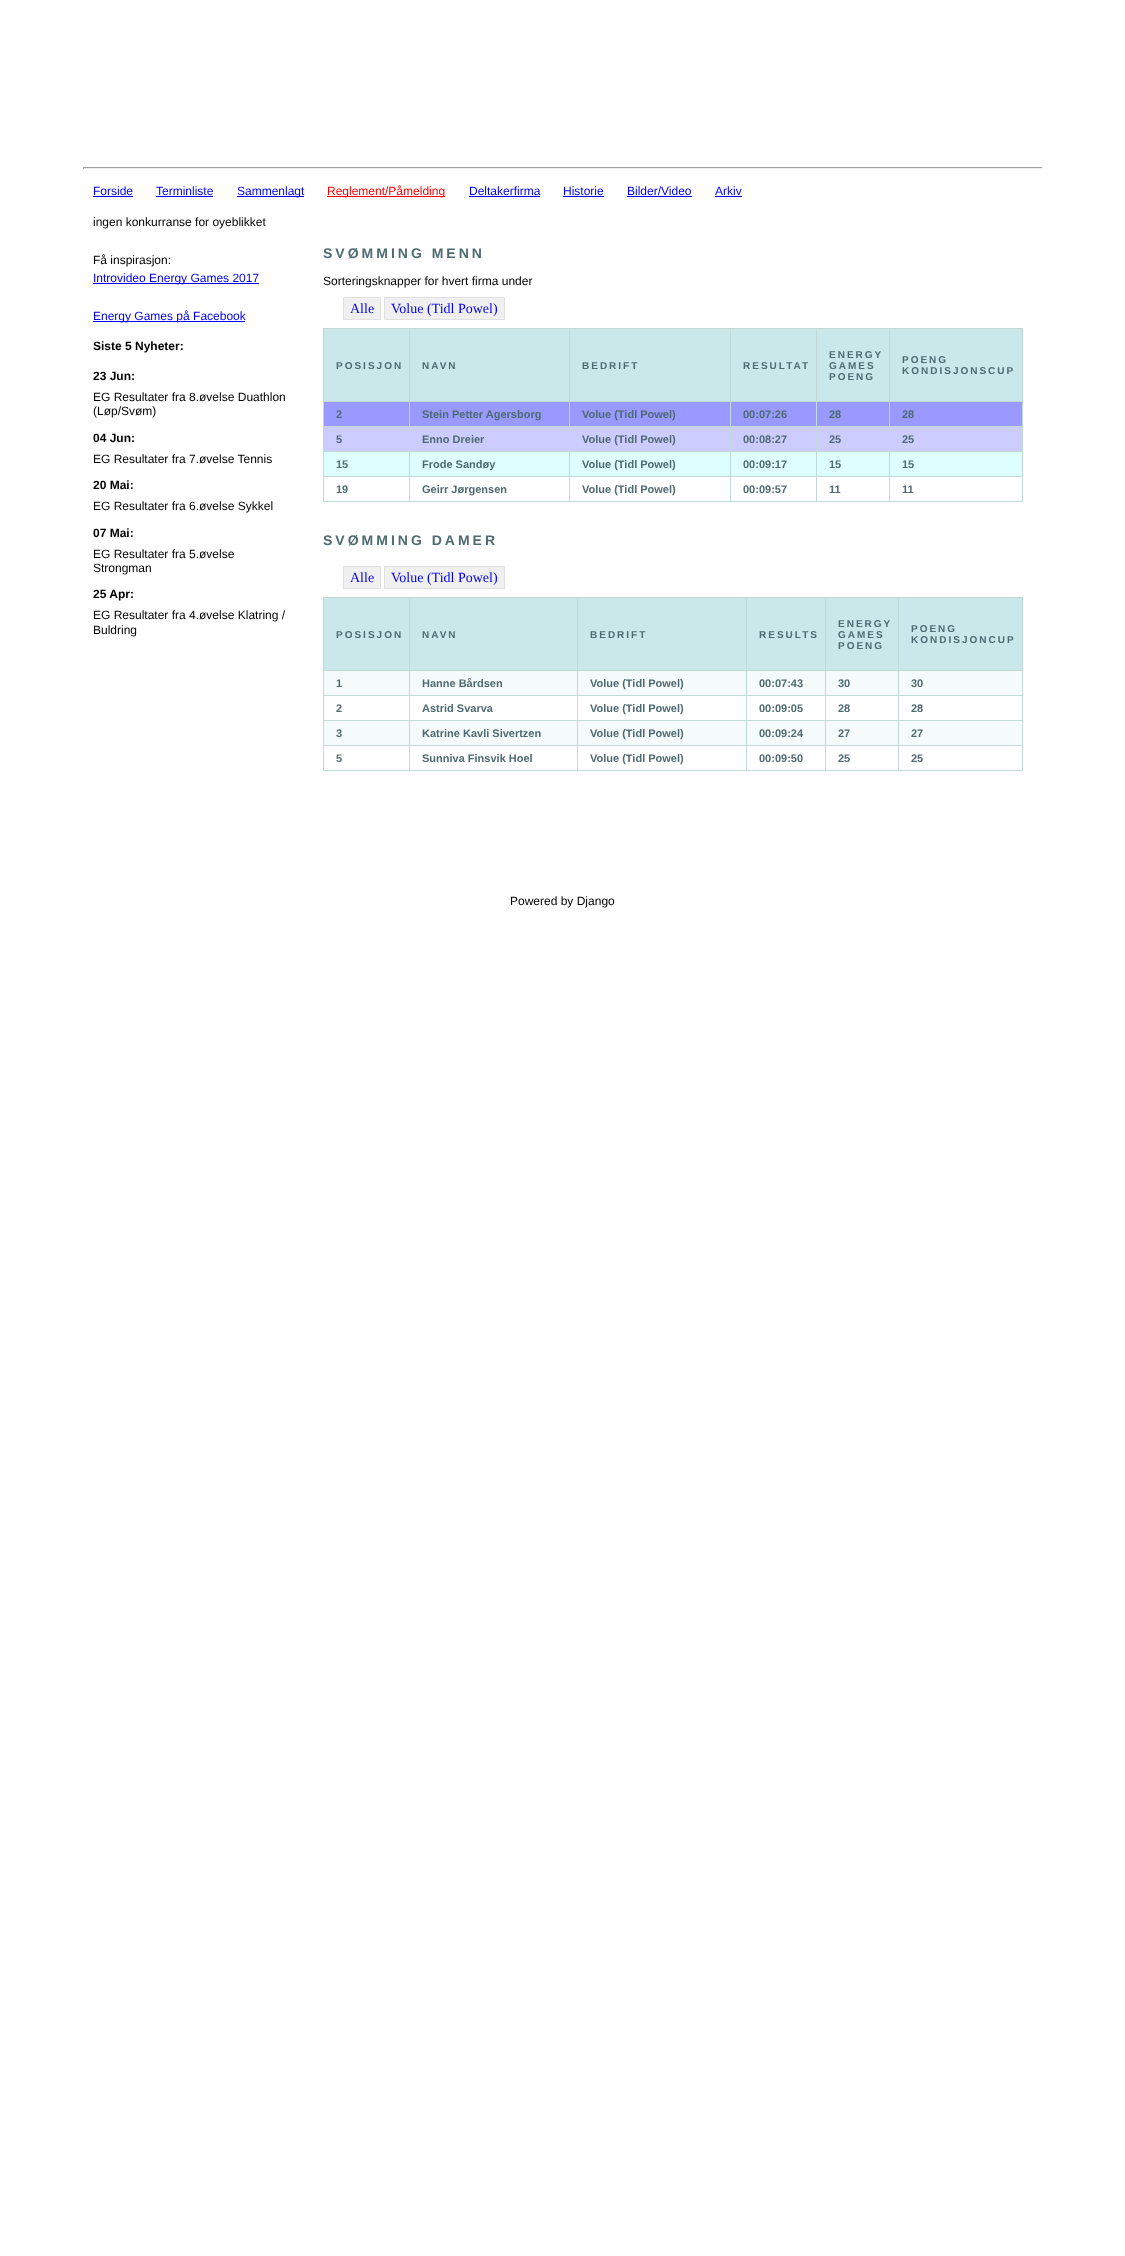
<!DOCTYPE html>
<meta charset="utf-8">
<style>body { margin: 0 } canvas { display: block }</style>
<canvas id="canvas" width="1125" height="2256"></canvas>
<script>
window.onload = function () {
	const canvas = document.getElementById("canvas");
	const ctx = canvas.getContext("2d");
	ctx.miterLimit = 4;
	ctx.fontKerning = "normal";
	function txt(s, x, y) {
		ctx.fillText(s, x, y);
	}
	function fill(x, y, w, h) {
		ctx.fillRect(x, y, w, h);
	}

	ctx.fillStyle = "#FFFFFF";
	fill(0, 0, 1125, 2256);
	ctx.fillStyle = "#9F9F9F";
	fill(83, 167, 960, 1);
	ctx.fillStyle = "#EEEEEE";
	fill(1042, 167, 1, 2);
	fill(83, 168, 960, 1);
	ctx.fillStyle = "#9F9F9F";
	fill(83, 167, 1, 2);
	ctx.fillStyle = "#0000EE";
	fill(93, 196, 40, 1);
	fill(156, 196, 57, 1);
	fill(237, 196, 67, 1);
	ctx.fillStyle = "#FF0000";
	fill(327, 196, 118, 1);
	ctx.fillStyle = "#0000EE";
	fill(469, 196, 71, 1);
	fill(563, 196, 41, 1);
	fill(627, 196, 65, 1);
	fill(715, 196, 27, 1);
	fill(93, 283, 166, 1);
	fill(93, 321, 152, 1);
	ctx.fillStyle = "#F0F0F0";
	ctx.beginPath();
	ctx.rect(343.5, 297.5, 37, 22);
	ctx.fill();
	ctx.strokeStyle = "#E0E0E0";
	ctx.stroke();
	ctx.beginPath();
	ctx.rect(384.5, 297.5, 120, 22);
	ctx.fill();
	ctx.stroke();
	ctx.fillStyle = "#CAE8EA";
	fill(324, 329, 85, 72);
	ctx.fillStyle = "#C1DAD7";
	fill(323, 328, 700, 1);
	fill(1022, 401, 1, 101);
	fill(1022, 328, 1, 74);
	fill(889, 501, 134, 1);
	fill(889, 476, 1, 26);
	fill(889, 476, 134, 1);
	fill(889, 451, 1, 26);
	fill(889, 451, 134, 1);
	fill(889, 426, 1, 26);
	fill(889, 426, 134, 1);
	fill(889, 401, 1, 26);
	fill(889, 401, 134, 1);
	fill(889, 328, 1, 74);
	fill(816, 501, 74, 1);
	fill(816, 476, 1, 26);
	fill(816, 476, 74, 1);
	fill(816, 451, 1, 26);
	fill(816, 451, 74, 1);
	fill(816, 426, 1, 26);
	fill(816, 426, 74, 1);
	fill(816, 401, 1, 26);
	fill(816, 401, 74, 1);
	fill(816, 328, 1, 74);
	fill(730, 501, 87, 1);
	fill(730, 476, 1, 26);
	fill(730, 476, 87, 1);
	fill(730, 451, 1, 26);
	fill(730, 451, 87, 1);
	fill(730, 426, 1, 26);
	fill(730, 426, 87, 1);
	fill(730, 401, 1, 26);
	fill(730, 401, 87, 1);
	fill(730, 328, 1, 74);
	fill(569, 501, 162, 1);
	fill(569, 476, 1, 26);
	fill(569, 476, 162, 1);
	fill(569, 451, 1, 26);
	fill(569, 451, 162, 1);
	fill(569, 426, 1, 26);
	fill(569, 426, 162, 1);
	fill(569, 401, 1, 26);
	fill(569, 401, 162, 1);
	fill(569, 328, 1, 74);
	fill(409, 501, 161, 1);
	fill(409, 476, 1, 26);
	fill(409, 476, 161, 1);
	fill(409, 451, 1, 26);
	fill(409, 451, 161, 1);
	fill(409, 426, 1, 26);
	fill(409, 426, 161, 1);
	fill(409, 401, 1, 26);
	fill(409, 401, 161, 1);
	fill(409, 328, 1, 74);
	fill(323, 501, 87, 1);
	fill(323, 476, 1, 26);
	fill(323, 476, 87, 1);
	fill(323, 451, 1, 26);
	fill(323, 451, 87, 1);
	fill(323, 426, 1, 26);
	fill(323, 426, 87, 1);
	fill(323, 401, 1, 26);
	fill(323, 401, 87, 1);
	fill(323, 328, 1, 74);
	ctx.fillStyle = "#CAE8EA";
	fill(410, 329, 159, 72);
	fill(570, 329, 160, 72);
	fill(731, 329, 85, 72);
	fill(817, 329, 72, 72);
	fill(890, 329, 132, 72);
	ctx.fillStyle = "#9999FF";
	fill(324, 402, 85, 24);
	fill(410, 402, 159, 24);
	fill(570, 402, 160, 24);
	fill(731, 402, 85, 24);
	fill(817, 402, 72, 24);
	fill(890, 402, 132, 24);
	ctx.fillStyle = "#CCCCFF";
	fill(324, 427, 85, 24);
	fill(410, 427, 159, 24);
	fill(570, 427, 160, 24);
	fill(731, 427, 85, 24);
	fill(817, 427, 72, 24);
	fill(890, 427, 132, 24);
	ctx.fillStyle = "#DDFFFF";
	fill(324, 452, 85, 24);
	fill(410, 452, 159, 24);
	fill(570, 452, 160, 24);
	fill(731, 452, 85, 24);
	fill(817, 452, 72, 24);
	fill(890, 452, 132, 24);
	ctx.fillStyle = "#F0F0F0";
	ctx.beginPath();
	ctx.rect(343.5, 566.5, 37, 22);
	ctx.fill();
	ctx.stroke();
	ctx.beginPath();
	ctx.rect(384.5, 566.5, 120, 22);
	ctx.fill();
	ctx.stroke();
	ctx.fillStyle = "#CAE8EA";
	fill(324, 598, 85, 72);
	ctx.fillStyle = "#C1DAD7";
	fill(323, 597, 700, 1);
	fill(1022, 670, 1, 101);
	fill(1022, 597, 1, 74);
	fill(898, 770, 125, 1);
	fill(898, 745, 1, 26);
	fill(898, 745, 125, 1);
	fill(898, 720, 1, 26);
	fill(898, 720, 125, 1);
	fill(898, 695, 1, 26);
	fill(898, 695, 125, 1);
	fill(898, 670, 1, 26);
	fill(898, 670, 125, 1);
	fill(898, 597, 1, 74);
	fill(825, 770, 74, 1);
	fill(825, 745, 1, 26);
	fill(825, 745, 74, 1);
	fill(825, 720, 1, 26);
	fill(825, 720, 74, 1);
	fill(825, 695, 1, 26);
	fill(825, 695, 74, 1);
	fill(825, 670, 1, 26);
	fill(825, 670, 74, 1);
	fill(825, 597, 1, 74);
	fill(746, 770, 80, 1);
	fill(746, 745, 1, 26);
	fill(746, 745, 80, 1);
	fill(746, 720, 1, 26);
	fill(746, 720, 80, 1);
	fill(746, 695, 1, 26);
	fill(746, 695, 80, 1);
	fill(746, 670, 1, 26);
	fill(746, 670, 80, 1);
	fill(746, 597, 1, 74);
	fill(577, 770, 170, 1);
	fill(577, 745, 1, 26);
	fill(577, 745, 170, 1);
	fill(577, 720, 1, 26);
	fill(577, 720, 170, 1);
	fill(577, 695, 1, 26);
	fill(577, 695, 170, 1);
	fill(577, 670, 1, 26);
	fill(577, 670, 170, 1);
	fill(577, 597, 1, 74);
	fill(409, 770, 169, 1);
	fill(409, 745, 1, 26);
	fill(409, 745, 169, 1);
	fill(409, 720, 1, 26);
	fill(409, 720, 169, 1);
	fill(409, 695, 1, 26);
	fill(409, 695, 169, 1);
	fill(409, 670, 1, 26);
	fill(409, 670, 169, 1);
	fill(409, 597, 1, 74);
	fill(323, 770, 87, 1);
	fill(323, 745, 1, 26);
	fill(323, 745, 87, 1);
	fill(323, 720, 1, 26);
	fill(323, 720, 87, 1);
	fill(323, 695, 1, 26);
	fill(323, 695, 87, 1);
	fill(323, 670, 1, 26);
	fill(323, 670, 87, 1);
	fill(323, 597, 1, 74);
	ctx.fillStyle = "#CAE8EA";
	fill(410, 598, 167, 72);
	fill(578, 598, 168, 72);
	fill(747, 598, 78, 72);
	fill(826, 598, 72, 72);
	fill(899, 598, 123, 72);
	ctx.fillStyle = "#F5FAFA";
	fill(324, 671, 85, 24);
	fill(410, 671, 167, 24);
	fill(578, 671, 168, 24);
	fill(747, 671, 78, 24);
	fill(826, 671, 72, 24);
	fill(899, 671, 123, 24);
	fill(324, 721, 85, 24);
	fill(410, 721, 167, 24);
	fill(578, 721, 168, 24);
	fill(747, 721, 78, 24);
	fill(826, 721, 72, 24);
	fill(899, 721, 123, 24);
	ctx.font = "12px Liberation Sans";
	ctx.fillStyle = "#0000EE";
	txt("Forside", 93, 195);
	txt("Terminliste", 156, 195);
	txt("Sammenlagt", 237, 195);
	ctx.fillStyle = "#FF0000";
	txt("Reglement/Påmelding", 327, 195);
	ctx.fillStyle = "#0000EE";
	txt("Deltakerfirma", 469, 195);
	txt("Historie", 563, 195);
	txt("Bilder/Video", 627, 195);
	txt("Arkiv", 715, 195);
	ctx.fillStyle = "#000000";
	txt("ingen konkurranse for oyeblikket", 93, 226);
	txt("Få inspirasjon:", 93, 264);
	ctx.fillStyle = "#0000EE";
	txt("Introvideo Energy Games 2017", 93, 282);
	txt("Energy Games på Facebook", 93, 320);
	ctx.font = "bold 12px Liberation Sans";
	ctx.fillStyle = "#000000";
	txt("Siste 5 Nyheter:", 93, 350);
	txt("23 Jun:", 93, 380);
	ctx.font = "12px Liberation Sans";
	txt("EG Resultater fra 8.øvelse Duathlon", 93, 401);
	txt("(Løp/Svøm)", 93, 415);
	ctx.font = "bold 12px Liberation Sans";
	txt("04 Jun:", 93, 442);
	ctx.font = "12px Liberation Sans";
	txt("EG Resultater fra 7.øvelse Tennis", 93, 463);
	ctx.font = "bold 12px Liberation Sans";
	txt("20 Mai:", 93, 489);
	ctx.font = "12px Liberation Sans";
	txt("EG Resultater fra 6.øvelse Sykkel", 93, 510);
	ctx.font = "bold 12px Liberation Sans";
	txt("07 Mai:", 93, 537);
	ctx.font = "12px Liberation Sans";
	txt("EG Resultater fra 5.øvelse", 93, 558);
	txt("Strongman", 93, 572);
	ctx.font = "bold 12px Liberation Sans";
	txt("25 Apr:", 93, 598);
	ctx.font = "12px Liberation Sans";
	txt("EG Resultater fra 4.øvelse Klatring /", 93, 619);
	txt("Buldring", 93, 634);
	ctx.letterSpacing = "3px";
	ctx.font = "bold 14px Liberation Sans";
	ctx.fillStyle = "#4F6B72";
	txt("SVØMMING MENN", 323, 258);
	ctx.letterSpacing = "0px";
	ctx.font = "12px Liberation Sans";
	ctx.fillStyle = "#000000";
	txt("Sorteringsknapper for hvert firma under", 323, 285);
	ctx.font = "14px Liberation Serif";
	ctx.fillStyle = "#0000EE";
	txt("Alle", 350, 313);
	txt("Volue (Tidl Powel)", 391, 313);
	ctx.letterSpacing = "2px";
	ctx.font = "bold 10px Liberation Sans";
	ctx.fillStyle = "#4F6B72";
	txt("POSISJON", 336, 369);
	txt("NAVN", 422, 369);
	txt("BEDRIFT", 582, 369);
	txt("RESULTAT", 743, 369);
	txt("ENERGY", 829, 358);
	txt("GAMES", 829, 369);
	txt("POENG", 829, 380);
	txt("POENG", 902, 363);
	txt("KONDISJONSCUP", 902, 374);
	ctx.letterSpacing = "0px";
	ctx.font = "bold 11px Liberation Sans";
	txt("2", 336, 418);
	txt("Stein Petter Agersborg", 422, 418);
	txt("Volue (Tidl Powel)", 582, 418);
	txt("00:07:26", 743, 418);
	txt("28", 829, 418);
	txt("28", 902, 418);
	txt("5", 336, 443);
	txt("Enno Dreier", 422, 443);
	txt("Volue (Tidl Powel)", 582, 443);
	txt("00:08:27", 743, 443);
	txt("25", 829, 443);
	txt("25", 902, 443);
	txt("15", 336, 468);
	txt("Frode Sandøy", 422, 468);
	txt("Volue (Tidl Powel)", 582, 468);
	txt("00:09:17", 743, 468);
	txt("15", 829, 468);
	txt("15", 902, 468);
	txt("19", 336, 493);
	txt("Geirr Jørgensen", 422, 493);
	txt("Volue (Tidl Powel)", 582, 493);
	txt("00:09:57", 743, 493);
	txt("11", 829, 493);
	txt("11", 902, 493);
	ctx.letterSpacing = "3px";
	ctx.font = "bold 14px Liberation Sans";
	txt("SVØMMING DAMER", 323, 545);
	ctx.letterSpacing = "0px";
	ctx.font = "14px Liberation Serif";
	ctx.fillStyle = "#0000EE";
	txt("Alle", 350, 582);
	txt("Volue (Tidl Powel)", 391, 582);
	ctx.letterSpacing = "2px";
	ctx.font = "bold 10px Liberation Sans";
	ctx.fillStyle = "#4F6B72";
	txt("POSISJON", 336, 638);
	txt("NAVN", 422, 638);
	txt("BEDRIFT", 590, 638);
	txt("RESULTS", 759, 638);
	txt("ENERGY", 838, 627);
	txt("GAMES", 838, 638);
	txt("POENG", 838, 649);
	txt("POENG", 911, 632);
	txt("KONDISJONCUP", 911, 643);
	ctx.letterSpacing = "0px";
	ctx.font = "bold 11px Liberation Sans";
	txt("1", 336, 687);
	txt("Hanne Bårdsen", 422, 687);
	txt("Volue (Tidl Powel)", 590, 687);
	txt("00:07:43", 759, 687);
	txt("30", 838, 687);
	txt("30", 911, 687);
	txt("2", 336, 712);
	txt("Astrid Svarva", 422, 712);
	txt("Volue (Tidl Powel)", 590, 712);
	txt("00:09:05", 759, 712);
	txt("28", 838, 712);
	txt("28", 911, 712);
	txt("3", 336, 737);
	txt("Katrine Kavli Sivertzen", 422, 737);
	txt("Volue (Tidl Powel)", 590, 737);
	txt("00:09:24", 759, 737);
	txt("27", 838, 737);
	txt("27", 911, 737);
	txt("5", 336, 762);
	txt("Sunniva Finsvik Hoel", 422, 762);
	txt("Volue (Tidl Powel)", 590, 762);
	txt("00:09:50", 759, 762);
	txt("25", 838, 762);
	txt("25", 911, 762);
	ctx.font = "12px Liberation Sans";
	ctx.fillStyle = "#000000";
	txt("Powered by Django", 510, 905);
};
</script>
